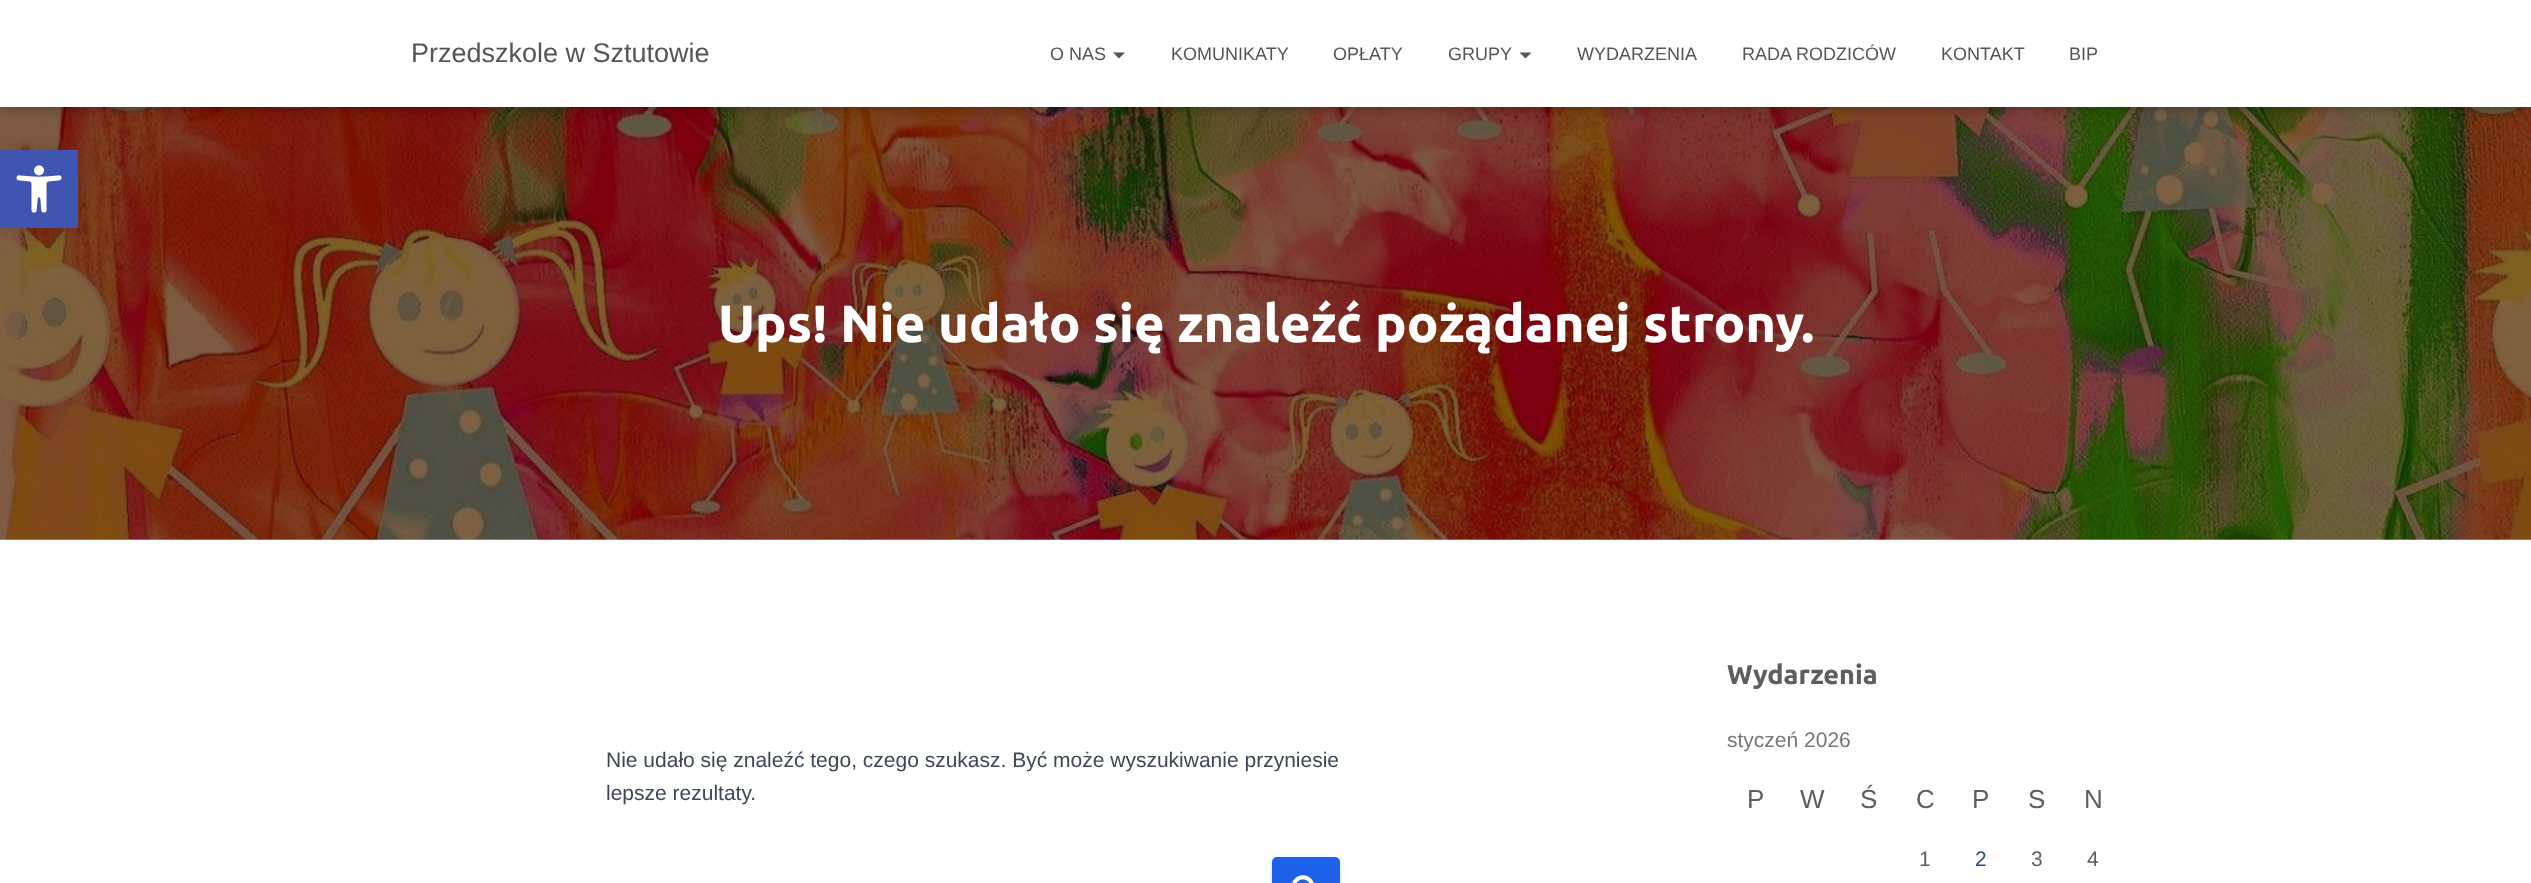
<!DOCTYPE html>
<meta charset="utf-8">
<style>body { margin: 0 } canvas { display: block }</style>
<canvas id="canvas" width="2531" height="883"></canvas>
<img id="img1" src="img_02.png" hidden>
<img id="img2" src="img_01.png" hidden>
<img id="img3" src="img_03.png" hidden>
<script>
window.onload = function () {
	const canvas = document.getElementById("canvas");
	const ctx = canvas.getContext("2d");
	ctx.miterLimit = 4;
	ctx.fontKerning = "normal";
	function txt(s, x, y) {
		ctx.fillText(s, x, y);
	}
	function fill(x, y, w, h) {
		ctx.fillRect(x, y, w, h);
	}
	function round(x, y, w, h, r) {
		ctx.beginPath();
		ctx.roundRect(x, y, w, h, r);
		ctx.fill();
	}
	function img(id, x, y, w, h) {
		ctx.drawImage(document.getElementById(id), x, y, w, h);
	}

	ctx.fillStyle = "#FFFFFF";
	fill(0, 0, 2531, 883);
	img("img1", 0, 107, 2531, 433);
	ctx.fillStyle = "rgba(0, 0, 0, 0.1)";
	ctx.filter = "blur(7.5px)";
	ctx.beginPath();
	ctx.rect(0, 150, 78, 78);
	ctx.fill();
	ctx.filter = "none";
	ctx.fillStyle = "#4054B2";
	fill(0, 150, 78, 78);
	img("img2", 16, 165, 46, 48);
	ctx.fillStyle = "rgba(0, 0, 0, 0.1)";
	ctx.filter = "blur(4px)";
	ctx.beginPath();
	ctx.rect(3, 9, 2526, 101);
	ctx.fill();
	ctx.filter = "none";
	ctx.fillStyle = "rgba(0, 0, 0, 0.12)";
	ctx.filter = "blur(7.5px)";
	ctx.beginPath();
	ctx.rect(0, 2, 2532, 106);
	ctx.fill();
	ctx.filter = "none";
	ctx.fillStyle = "rgba(0, 0, 0, 0.42)";
	ctx.filter = "blur(7.5px)";
	ctx.beginPath();
	ctx.rect(9, 11, 2514, 88);
	ctx.fill();
	ctx.filter = "none";
	ctx.fillStyle = "#FFFFFF";
	fill(0, 0, 2531, 107);
	ctx.fillStyle = "#555555";
	ctx.beginPath();
	ctx.moveTo(1113, 52.5);
	ctx.lineTo(1125, 52.5);
	ctx.lineTo(1119, 58.5);
	ctx.closePath();
	ctx.fill();
	ctx.beginPath();
	ctx.moveTo(1519.5, 52.5);
	ctx.lineTo(1531.5, 52.5);
	ctx.lineTo(1525.5, 58.5);
	ctx.closePath();
	ctx.fill();
	ctx.fillStyle = "rgba(30, 98, 234, 0.12)";
	ctx.filter = "blur(4px)";
	ctx.beginPath();
	ctx.roundRect(1272, 858, 68, 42, 5);
	ctx.fill();
	ctx.filter = "none";
	ctx.fillStyle = "rgba(30, 98, 234, 0.14)";
	ctx.filter = "blur(1.5px)";
	ctx.beginPath();
	ctx.roundRect(1272, 860, 68, 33, 5);
	ctx.fill();
	ctx.filter = "none";
	ctx.fillStyle = "#1E62EA";
	round(1272, 857, 68, 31, 5);
	img("img3", 1292, 875, 22, 8);
	ctx.font = "27px Liberation Sans";
	ctx.fillStyle = "#555555";
	txt("Przedszkole w Sztutowie", 411, 62);
	ctx.font = "18px Liberation Sans";
	txt("O NAS", 1050, 60);
	txt("KOMUNIKATY", 1171, 60);
	txt("OPŁATY", 1333, 60);
	txt("GRUPY", 1448, 60);
	txt("WYDARZENIA", 1577, 60);
	txt("RADA RODZICÓW", 1742, 60);
	txt("KONTAKT", 1941, 60);
	txt("BIP", 2069, 60);
	ctx.font = "bold 52.5px Ubuntu";
	ctx.fillStyle = "#FFFFFF";
	txt("Ups! Nie udało się znaleźć pożądanej strony.", 718, 342);
	ctx.font = "21px Liberation Sans";
	ctx.fillStyle = "#3C4858";
	txt("Nie udało się znaleźć tego, czego szukasz. Być może wyszukiwanie przyniesie", 606, 767);
	txt("lepsze rezultaty.", 606, 800);
	ctx.font = "bold 27px Ubuntu";
	ctx.fillStyle = "#5E5E5E";
	txt("Wydarzenia", 1727, 684);
	ctx.font = "21px Liberation Sans";
	ctx.fillStyle = "#777777";
	txt("styczeń 2026", 1727, 747);
	ctx.font = "26px Liberation Sans";
	ctx.fillStyle = "#5E5E5E";
	txt("P", 1747, 808);
	txt("W", 1800, 808);
	txt("Ś", 1860, 808);
	txt("C", 1916, 808);
	txt("P", 1972, 808);
	txt("S", 2028, 808);
	txt("N", 2084, 808);
	ctx.font = "21px Liberation Sans";
	txt("1", 1919, 866);
	ctx.fillStyle = "#23527C";
	txt("2", 1975, 866);
	ctx.fillStyle = "#5E5E5E";
	txt("3", 2031, 866);
	txt("4", 2087, 866);
};
</script>
